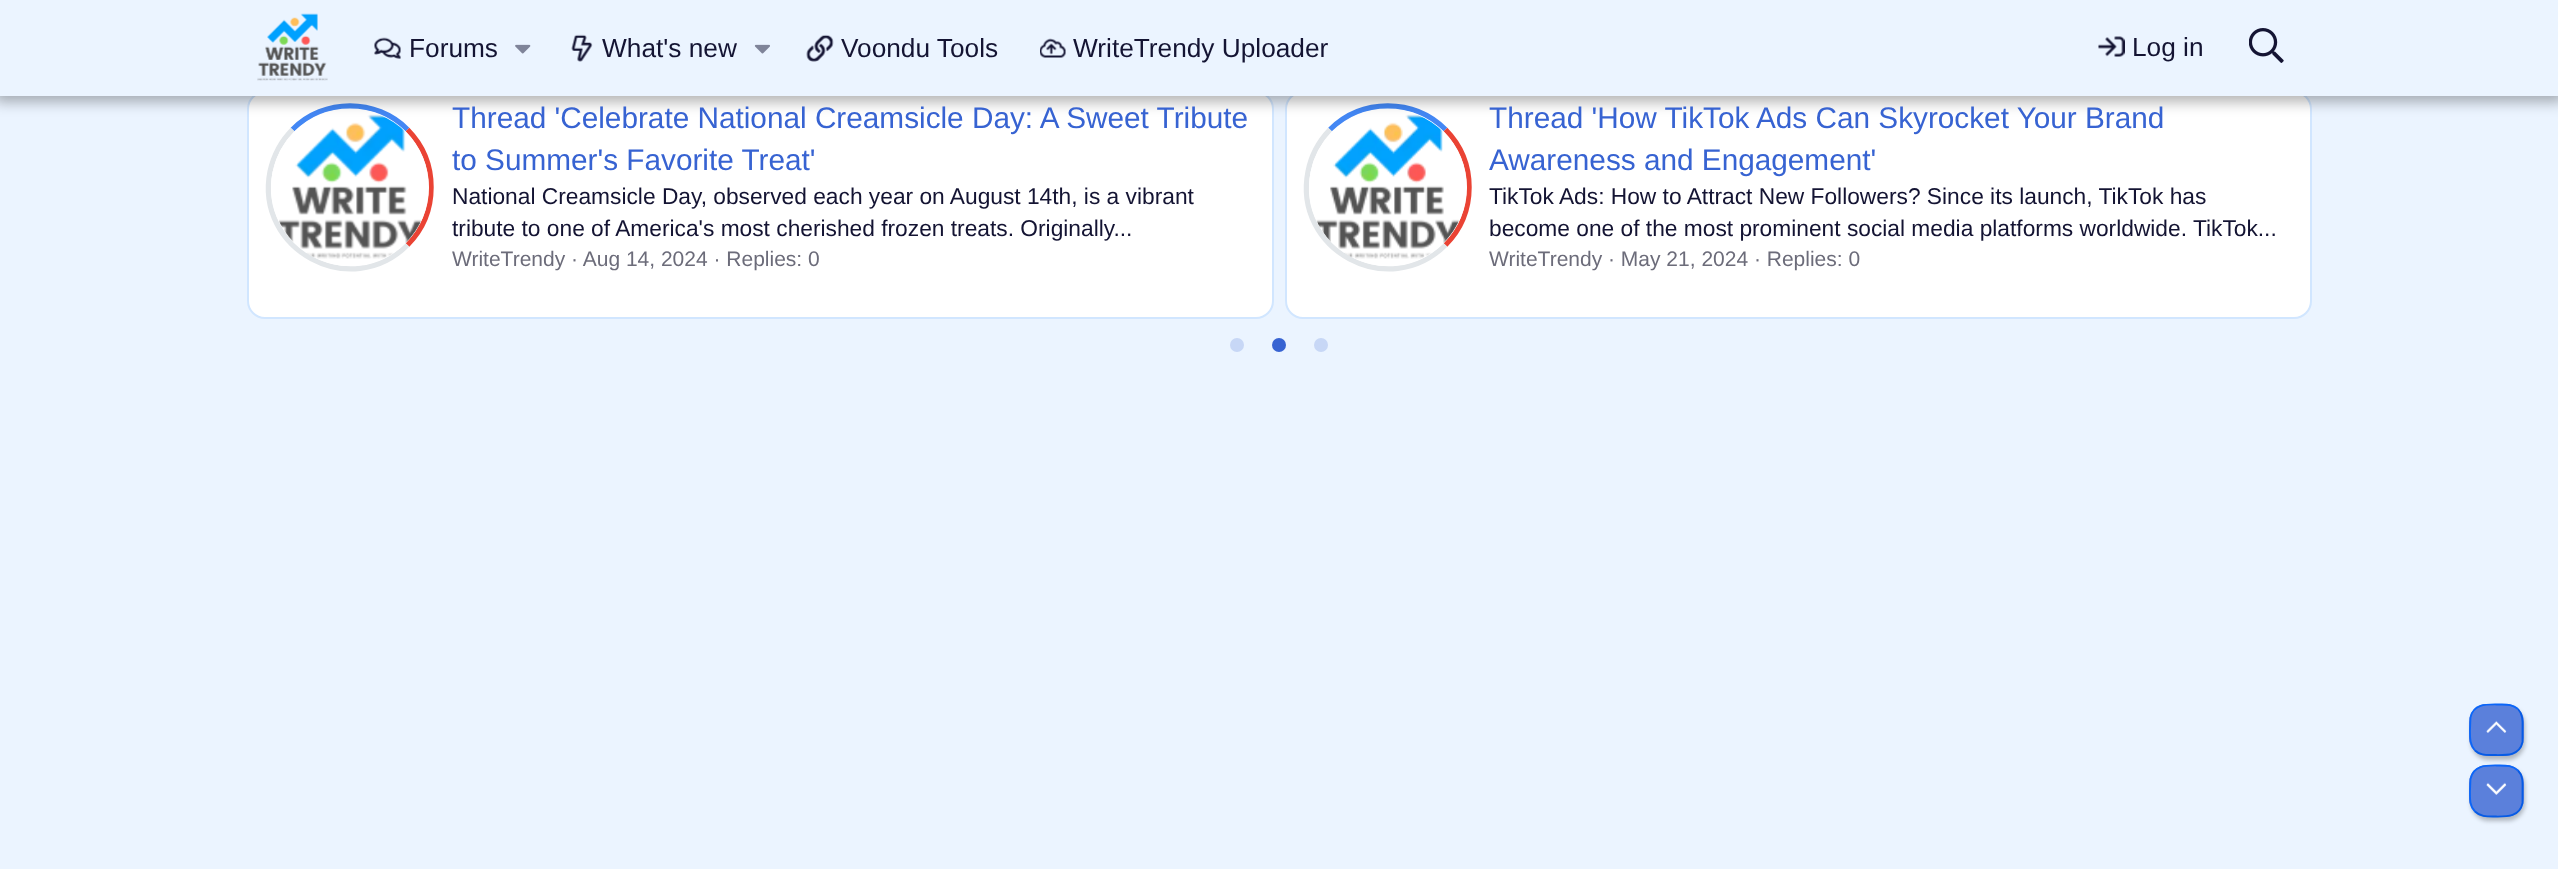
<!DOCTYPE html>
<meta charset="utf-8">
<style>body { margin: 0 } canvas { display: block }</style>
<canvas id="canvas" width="2558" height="869"></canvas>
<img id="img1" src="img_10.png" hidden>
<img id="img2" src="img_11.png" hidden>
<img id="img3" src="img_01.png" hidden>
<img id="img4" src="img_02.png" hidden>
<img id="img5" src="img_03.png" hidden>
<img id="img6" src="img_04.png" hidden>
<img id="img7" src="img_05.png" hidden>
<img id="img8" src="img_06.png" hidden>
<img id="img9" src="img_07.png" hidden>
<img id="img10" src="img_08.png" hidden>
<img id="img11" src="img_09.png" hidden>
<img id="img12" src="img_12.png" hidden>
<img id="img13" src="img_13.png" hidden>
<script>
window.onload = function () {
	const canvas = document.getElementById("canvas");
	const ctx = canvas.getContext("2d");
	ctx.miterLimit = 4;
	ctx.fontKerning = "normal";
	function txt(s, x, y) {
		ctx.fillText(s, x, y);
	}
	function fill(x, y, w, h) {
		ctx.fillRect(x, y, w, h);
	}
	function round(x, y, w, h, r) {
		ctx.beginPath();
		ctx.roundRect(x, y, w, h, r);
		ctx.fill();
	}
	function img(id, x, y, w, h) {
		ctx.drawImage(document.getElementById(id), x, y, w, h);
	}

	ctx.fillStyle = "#EBF4FF";
	fill(0, 0, 2558, 869);
	ctx.fillStyle = "#FFFFFF";
	ctx.beginPath();
	ctx.roundRect(248, 92, 1025, 226, 17);
	ctx.fill();
	ctx.strokeStyle = "#D1E6FF";
	ctx.lineWidth = 2;
	ctx.stroke();
	ctx.beginPath();
	ctx.moveTo(292.5, 129.5);
	ctx.bezierCurveTo(324, 98, 376, 98, 407.5, 129.5);
	ctx.strokeStyle = "#4387F4";
	ctx.lineWidth = 5.2;
	ctx.stroke();
	ctx.beginPath();
	ctx.moveTo(407.5, 129.5);
	ctx.bezierCurveTo(439, 161.5, 439, 213, 407.5, 245);
	ctx.strokeStyle = "#EA4334";
	ctx.stroke();
	ctx.beginPath();
	ctx.moveTo(407.5, 245);
	ctx.bezierCurveTo(351, 301.5, 254.5, 250, 270, 171.5);
	ctx.bezierCurveTo(273.5, 155.5, 281, 141, 292.5, 129.5);
	ctx.strokeStyle = "#E2E6E9";
	ctx.stroke();
	round(271, 109, 158, 157, 78.5);
	img("img1", 279, 114, 142, 145);
	ctx.beginPath();
	ctx.roundRect(1286, 92, 1025, 226, 17);
	ctx.fill();
	ctx.strokeStyle = "#D1E6FF";
	ctx.lineWidth = 2;
	ctx.stroke();
	ctx.beginPath();
	ctx.moveTo(1330, 129.5);
	ctx.bezierCurveTo(1362, 98, 1413.5, 98, 1445.5, 129.5);
	ctx.strokeStyle = "#4387F4";
	ctx.lineWidth = 5.2;
	ctx.stroke();
	ctx.beginPath();
	ctx.moveTo(1445.5, 129.5);
	ctx.bezierCurveTo(1477, 161.5, 1477, 213, 1445.5, 245);
	ctx.strokeStyle = "#EA4334";
	ctx.stroke();
	ctx.beginPath();
	ctx.moveTo(1445.5, 245);
	ctx.bezierCurveTo(1388.5, 301.5, 1292.5, 250, 1308, 171.5);
	ctx.bezierCurveTo(1311, 155.5, 1319, 141, 1330, 129.5);
	ctx.strokeStyle = "#E2E6E9";
	ctx.stroke();
	round(1309, 109, 158, 157, 78.5);
	img("img2", 1316, 114, 143, 145);
	ctx.fillStyle = "rgba(0, 0, 0, 0.3)";
	ctx.filter = "blur(7px)";
	ctx.beginPath();
	ctx.rect(-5, -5, 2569, 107);
	ctx.fill();
	ctx.filter = "none";
	ctx.fillStyle = "#EBF4FF";
	fill(0, 0, 2558, 96);
	img("img3", 257, 13, 71, 68);
	img("img4", 374, 37, 27, 22);
	img("img5", 515, 44, 16, 10);
	img("img6", 571, 34, 22, 28);
	img("img7", 754, 44, 16, 10);
	img("img8", 806, 34, 28, 28);
	img("img9", 1040, 38, 26, 20);
	img("img10", 2098, 36, 27, 21);
	img("img11", 2249, 28, 35, 35);
	ctx.fillStyle = "#C7D7F6";
	ctx.beginPath();
	ctx.arc(1237, 345, 7, 0, Math.PI * 2);
	ctx.fill();
	ctx.fillStyle = "#3763D2";
	ctx.beginPath();
	ctx.arc(1279, 345, 7, 0, Math.PI * 2);
	ctx.fill();
	ctx.fillStyle = "#C7D7F6";
	ctx.beginPath();
	ctx.arc(1321, 345, 7, 0, Math.PI * 2);
	ctx.fill();
	ctx.save();
	ctx.beginPath();
	ctx.moveTo(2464, 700);
	ctx.lineTo(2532, 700);
	ctx.lineTo(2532, 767);
	ctx.lineTo(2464, 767);
	ctx.closePath();
	ctx.moveTo(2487, 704);
	ctx.lineTo(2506, 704);
	ctx.bezierCurveTo(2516, 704, 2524, 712, 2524, 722);
	ctx.lineTo(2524, 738);
	ctx.bezierCurveTo(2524, 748, 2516, 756, 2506, 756);
	ctx.lineTo(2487, 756);
	ctx.bezierCurveTo(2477, 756, 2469, 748, 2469, 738);
	ctx.lineTo(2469, 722);
	ctx.bezierCurveTo(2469, 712, 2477, 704, 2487, 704);
	ctx.closePath();
	ctx.clip("evenodd");
	ctx.fillStyle = "rgba(0, 0, 0, 0.25)";
	ctx.filter = "blur(2px)";
	ctx.beginPath();
	ctx.roundRect(2471, 707, 54, 53, 18);
	ctx.fill();
	ctx.filter = "none";
	ctx.restore();
	ctx.fillStyle = "rgba(55, 99, 210, 0.8)";
	round(2469, 704, 55, 52, 18);
	ctx.beginPath();
	ctx.moveTo(2518, 709);
	ctx.bezierCurveTo(2523.5, 715, 2522.5, 722.5, 2522.5, 730);
	ctx.lineTo(2522.5, 742);
	ctx.bezierCurveTo(2519.5, 756.5, 2505, 755, 2493, 755);
	ctx.bezierCurveTo(2486.5, 755, 2480, 755.5, 2475, 750.5);
	ctx.strokeStyle = "#065BE5";
	ctx.lineWidth = 1.8;
	ctx.stroke();
	ctx.beginPath();
	ctx.moveTo(2475, 750.5);
	ctx.bezierCurveTo(2469.5, 744.5, 2470, 737, 2470, 730);
	ctx.lineTo(2470.5, 717.5);
	ctx.bezierCurveTo(2473.5, 703, 2488, 704.5, 2499.5, 704.5);
	ctx.bezierCurveTo(2506.5, 704.5, 2512.5, 704, 2518, 709);
	ctx.strokeStyle = "#0B66F9";
	ctx.stroke();
	img("img12", 2486, 720, 21, 13);
	ctx.save();
	ctx.beginPath();
	ctx.moveTo(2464, 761);
	ctx.lineTo(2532, 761);
	ctx.lineTo(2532, 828);
	ctx.lineTo(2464, 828);
	ctx.closePath();
	ctx.moveTo(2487, 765);
	ctx.lineTo(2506, 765);
	ctx.bezierCurveTo(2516, 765, 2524, 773, 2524, 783);
	ctx.lineTo(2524, 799);
	ctx.bezierCurveTo(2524, 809, 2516, 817, 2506, 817);
	ctx.lineTo(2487, 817);
	ctx.bezierCurveTo(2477, 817, 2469, 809, 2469, 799);
	ctx.lineTo(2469, 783);
	ctx.bezierCurveTo(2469, 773, 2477, 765, 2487, 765);
	ctx.closePath();
	ctx.clip("evenodd");
	ctx.fillStyle = "rgba(0, 0, 0, 0.25)";
	ctx.filter = "blur(2px)";
	ctx.beginPath();
	ctx.roundRect(2471, 768, 54, 53, 18);
	ctx.fill();
	ctx.filter = "none";
	ctx.restore();
	round(2469, 765, 55, 52, 18);
	ctx.beginPath();
	ctx.moveTo(2518, 770.5);
	ctx.bezierCurveTo(2523.5, 776, 2522.5, 783.5, 2522.5, 791);
	ctx.lineTo(2522.5, 803);
	ctx.bezierCurveTo(2519.5, 818, 2505, 816.5, 2493, 816.5);
	ctx.bezierCurveTo(2486.5, 816.5, 2480, 816.5, 2475, 811.5);
	ctx.strokeStyle = "#065BE5";
	ctx.stroke();
	ctx.beginPath();
	ctx.moveTo(2475, 811.5);
	ctx.bezierCurveTo(2469.5, 806, 2470, 798.5, 2470, 791);
	ctx.lineTo(2470.5, 779);
	ctx.bezierCurveTo(2473.5, 764, 2488, 765.5, 2499.5, 765.5);
	ctx.bezierCurveTo(2506.5, 765.5, 2512.5, 765.5, 2518, 770.5);
	ctx.strokeStyle = "#0B66F9";
	ctx.stroke();
	img("img13", 2486, 782, 21, 13);
	ctx.font = "26.25px Liberation Sans";
	ctx.fillStyle = "#141433";
	txt("Forums", 409, 57);
	txt("What's new", 602, 57);
	txt("Voondu Tools", 841, 57);
	txt("WriteTrendy Uploader", 1073, 57);
	txt("Log in", 2132, 56);
	ctx.font = "29.75px Liberation Sans";
	ctx.fillStyle = "#3763D2";
	txt("Thread 'Celebrate National Creamsicle Day: A Sweet Tribute", 452, 128);
	txt("to Summer's Favorite Treat'", 452, 170);
	ctx.font = "22.75px Liberation Sans";
	ctx.fillStyle = "#141433";
	txt("National Creamsicle Day, observed each year on August 14th, is a vibrant", 452, 204);
	txt("tribute to one of America's most cherished frozen treats. Originally...", 452, 236);
	ctx.font = "21px Liberation Sans";
	ctx.fillStyle = "#6C6C7A";
	txt("WriteTrendy · Aug 14, 2024 · Replies: 0", 452, 266);
	ctx.font = "29.75px Liberation Sans";
	ctx.fillStyle = "#3763D2";
	txt("Thread 'How TikTok Ads Can Skyrocket Your Brand", 1489, 128);
	txt("Awareness and Engagement'", 1489, 170);
	ctx.font = "22.75px Liberation Sans";
	ctx.fillStyle = "#141433";
	txt("TikTok Ads: How to Attract New Followers? Since its launch, TikTok has", 1489, 204);
	txt("become one of the most prominent social media platforms worldwide. TikTok...", 1489, 236);
	ctx.font = "21px Liberation Sans";
	ctx.fillStyle = "#6C6C7A";
	txt("WriteTrendy · May 21, 2024 · Replies: 0", 1489, 266);
};
</script>
